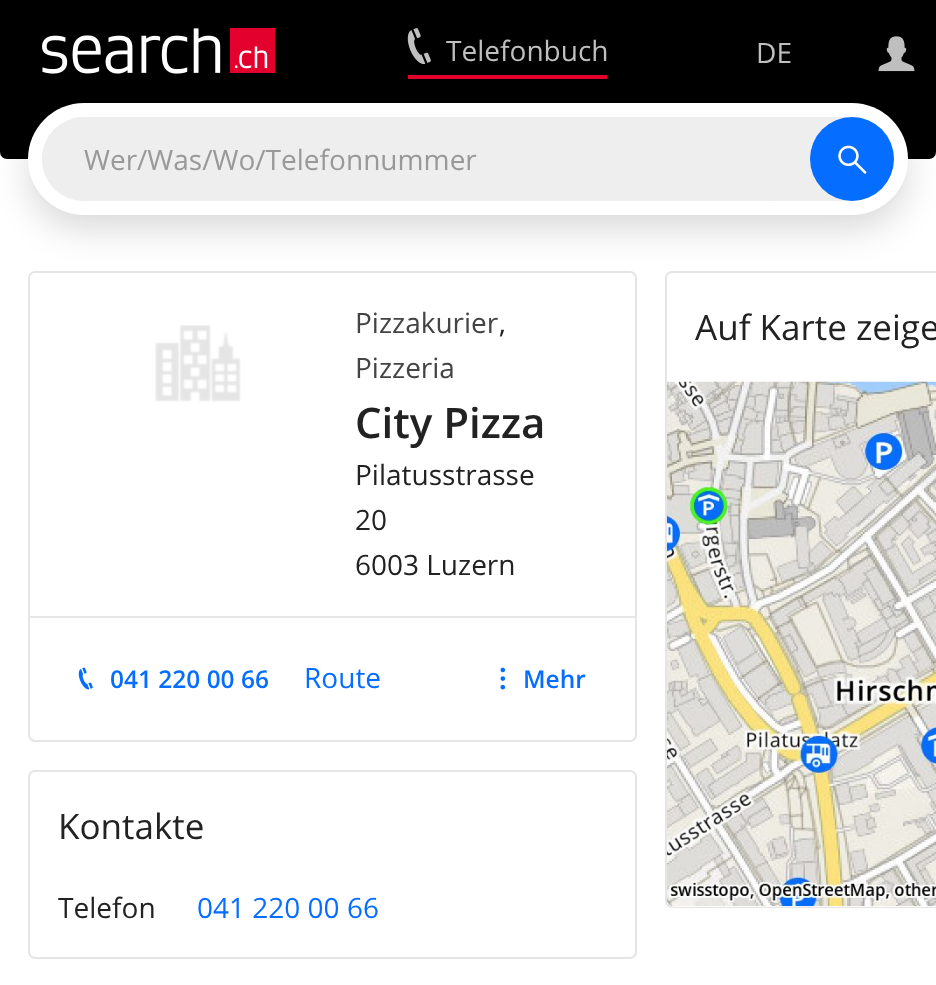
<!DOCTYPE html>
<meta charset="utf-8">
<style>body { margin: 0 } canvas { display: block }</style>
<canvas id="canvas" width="936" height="985"></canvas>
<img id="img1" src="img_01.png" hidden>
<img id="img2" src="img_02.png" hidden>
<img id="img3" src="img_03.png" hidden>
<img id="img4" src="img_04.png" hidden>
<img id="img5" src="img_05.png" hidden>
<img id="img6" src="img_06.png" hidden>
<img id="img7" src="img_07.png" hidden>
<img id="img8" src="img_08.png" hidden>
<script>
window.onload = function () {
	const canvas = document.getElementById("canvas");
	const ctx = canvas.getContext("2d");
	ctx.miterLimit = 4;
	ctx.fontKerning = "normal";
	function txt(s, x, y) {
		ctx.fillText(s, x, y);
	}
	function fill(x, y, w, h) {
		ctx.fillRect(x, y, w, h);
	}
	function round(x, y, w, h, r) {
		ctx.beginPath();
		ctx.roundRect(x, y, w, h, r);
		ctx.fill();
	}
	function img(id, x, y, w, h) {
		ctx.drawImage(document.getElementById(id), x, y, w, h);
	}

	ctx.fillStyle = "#FFFFFF";
	fill(0, 0, 936, 985);
	ctx.fillStyle = "#000000";
	fill(0, 0, 936, 103);
	img("img1", 42, 28, 233, 46);
	ctx.fillStyle = "#E4002C";
	fill(408, 75, 199, 4);
	img("img2", 407, 28, 24, 37);
	img("img3", 878, 36, 37, 36);
	ctx.fillStyle = "#000000";
	ctx.beginPath();
	ctx.roundRect(0, 103, 936, 56, [0, 0, 7, 7]);
	ctx.fill();
	ctx.beginPath();
	ctx.roundRect(29, 272, 607, 469, 6);
	ctx.strokeStyle = "#E5E5E5";
	ctx.lineWidth = 2;
	ctx.stroke();
	ctx.beginPath();
	ctx.roundRect(666, 272, 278, 635, 6);
	ctx.stroke();
	ctx.fillStyle = "#FFFFFF";
	round(667, 273, 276, 634, 7);
	ctx.fillStyle = "rgba(0, 0, 0, 0.15)";
	ctx.filter = "blur(17.5px)";
	ctx.beginPath();
	ctx.roundRect(28, 117, 880, 112, 56);
	ctx.fill();
	ctx.filter = "none";
	ctx.fillStyle = "#FFFFFF";
	round(28, 103, 880, 112, 56);
	ctx.fillStyle = "#EEEEEE";
	round(42, 117, 852, 84, 42);
	round(42, 117, 768, 84, 42);
	ctx.fillStyle = "#056DFF";
	ctx.beginPath();
	ctx.arc(852, 159, 42, 0, Math.PI * 2);
	ctx.fill();
	img("img4", 838, 145, 29, 29);
	img("img5", 155, 325, 86, 77);
	ctx.fillStyle = "#E6E6E6";
	fill(30, 616, 605, 2);
	img("img6", 78, 667, 15, 23);
	img("img7", 500, 667, 6, 23);
	ctx.beginPath();
	ctx.roundRect(29, 771, 607, 187, 6);
	ctx.stroke();
	img("img8", 667, 381, 269, 526);
	ctx.font = "28px Open Sans";
	ctx.fillStyle = "#BFBFBF";
	txt("Telefonbuch", 446, 61);
	txt("DE", 756, 63);
	ctx.fillStyle = "#999999";
	txt("Wer/Was/Wo/Telefonnummer", 84, 170);
	ctx.fillStyle = "#444444";
	txt("Pizzakurier", 355, 333);
	ctx.fillStyle = "#222222";
	txt(",", 499, 333);
	ctx.fillStyle = "#444444";
	txt("Pizzeria", 355, 378);
	ctx.font = "600 42px Open Sans";
	ctx.fillStyle = "#222222";
	txt("City Pizza", 355, 438);
	ctx.font = "28px Open Sans";
	txt("Pilatusstrasse", 355, 485);
	txt("20", 355, 530);
	txt("6003 Luzern", 355, 575);
	ctx.font = "600 24.5px Open Sans";
	ctx.fillStyle = "#056DFF";
	txt("041 220 00 66", 110, 688);
	ctx.font = "28px Open Sans";
	txt("Route", 304, 688);
	ctx.font = "600 24.5px Open Sans";
	txt("Mehr", 523, 688);
	ctx.font = "35px Open Sans";
	ctx.fillStyle = "#222222";
	txt("Kontakte", 58, 839);
	ctx.font = "28px Open Sans";
	txt("Telefon", 58, 918);
	ctx.fillStyle = "#056DFF";
	txt("041 220 00 66", 197, 918);
	ctx.font = "35px Open Sans";
	ctx.fillStyle = "#222222";
	txt("Auf Karte zeige", 695, 340);
};
</script>
